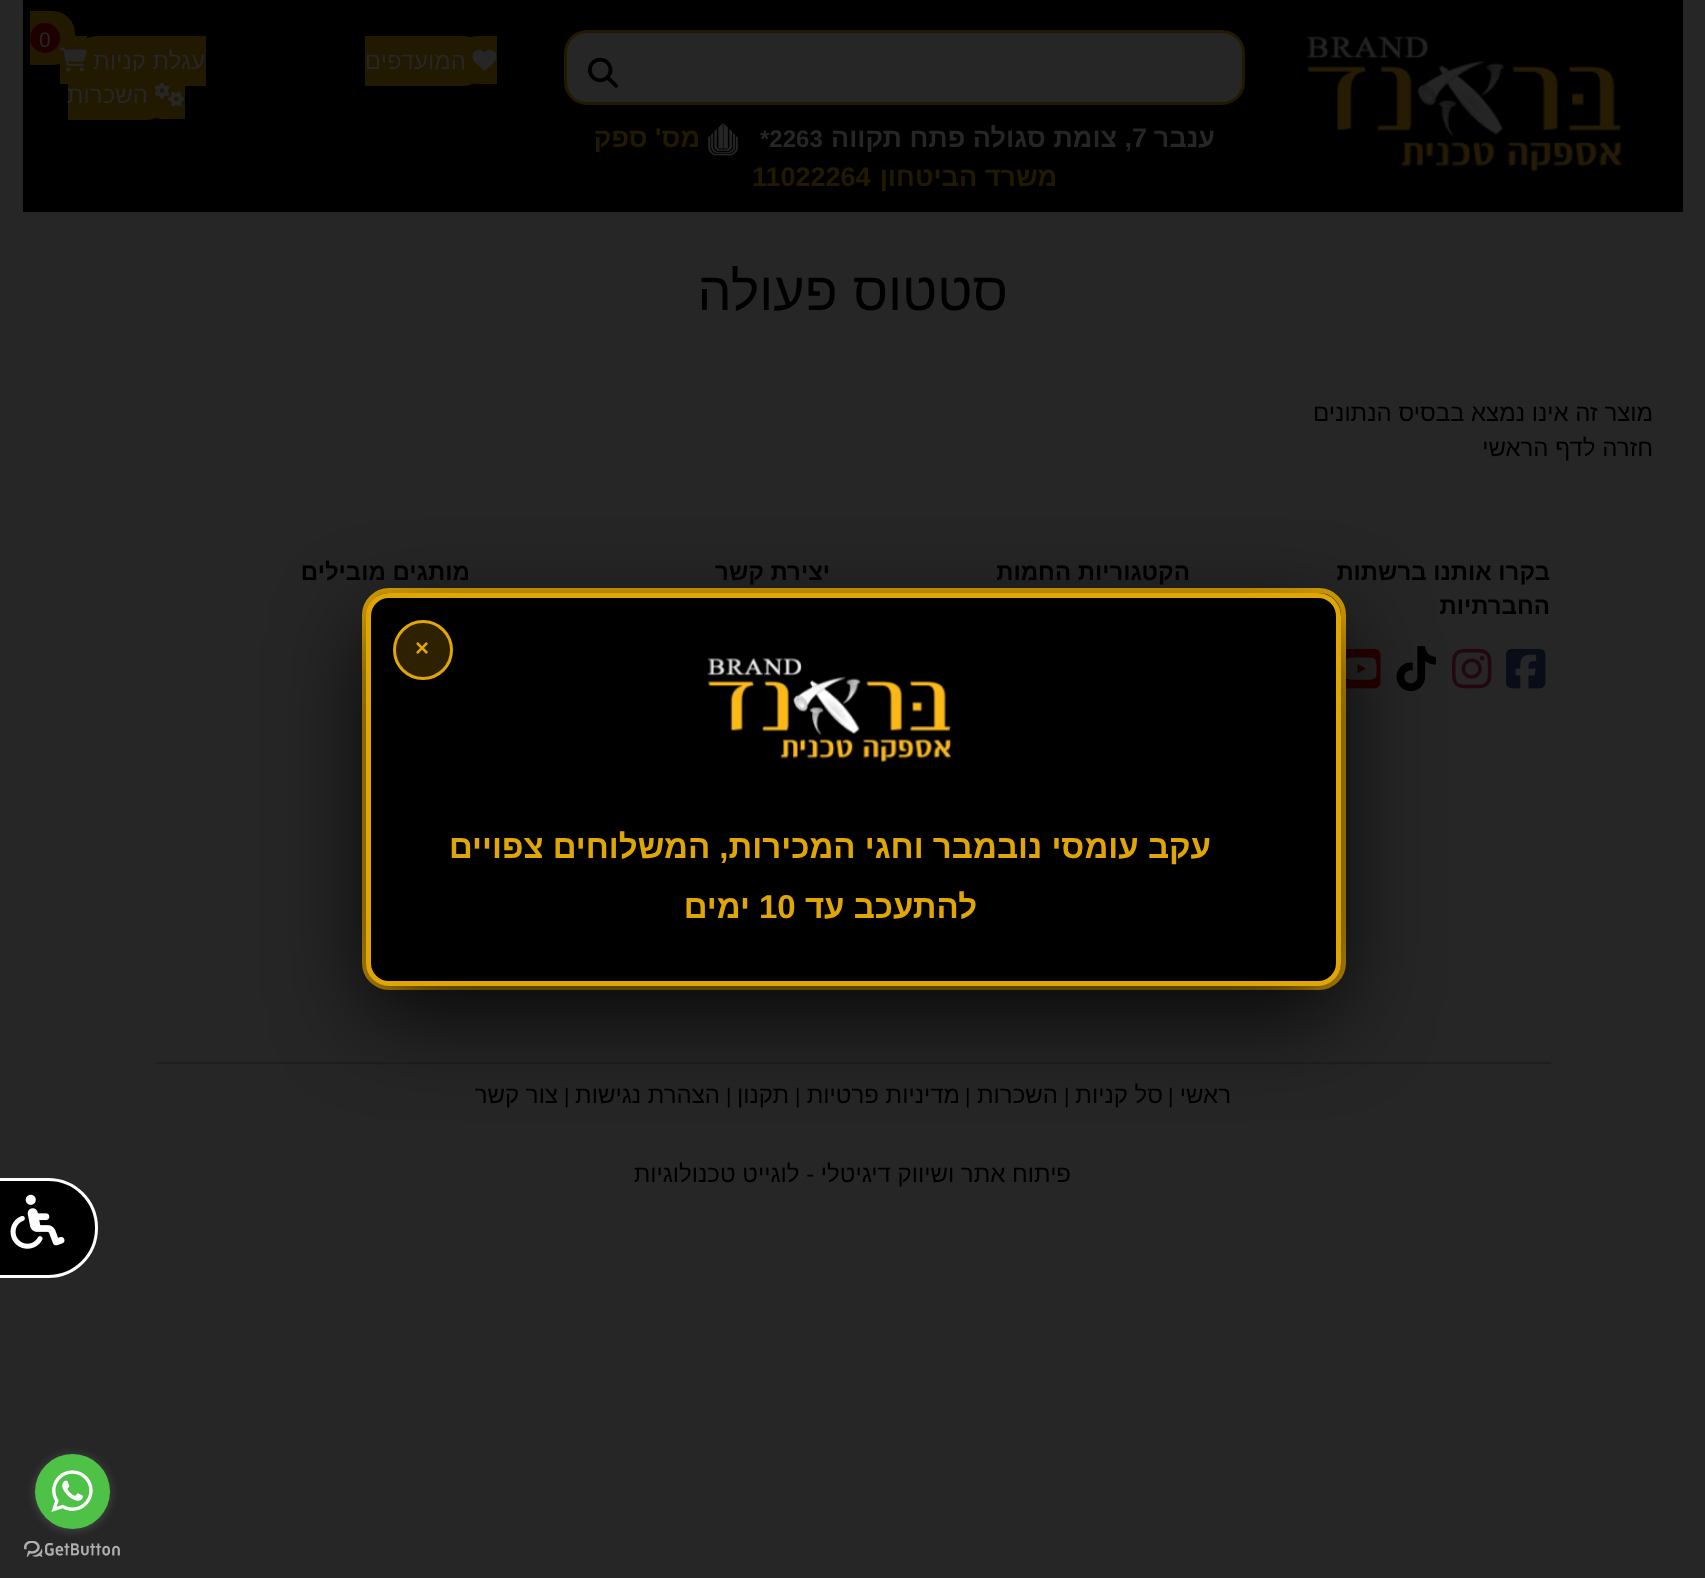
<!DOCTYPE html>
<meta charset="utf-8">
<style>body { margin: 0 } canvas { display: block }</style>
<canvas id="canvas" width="1705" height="1578"></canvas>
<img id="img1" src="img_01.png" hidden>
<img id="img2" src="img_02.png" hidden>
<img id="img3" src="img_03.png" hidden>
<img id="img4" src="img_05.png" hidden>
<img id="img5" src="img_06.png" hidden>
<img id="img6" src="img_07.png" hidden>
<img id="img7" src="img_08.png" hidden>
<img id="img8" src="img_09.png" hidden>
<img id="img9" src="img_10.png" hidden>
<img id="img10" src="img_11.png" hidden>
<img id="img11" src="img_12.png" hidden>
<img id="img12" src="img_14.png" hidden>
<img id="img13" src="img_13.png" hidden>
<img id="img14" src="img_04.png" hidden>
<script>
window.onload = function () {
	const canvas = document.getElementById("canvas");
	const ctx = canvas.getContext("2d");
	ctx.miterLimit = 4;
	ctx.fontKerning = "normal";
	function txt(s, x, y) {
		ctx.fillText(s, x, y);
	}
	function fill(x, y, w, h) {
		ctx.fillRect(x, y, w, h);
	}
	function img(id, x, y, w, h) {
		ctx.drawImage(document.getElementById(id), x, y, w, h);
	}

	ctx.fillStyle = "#262626";
	fill(0, 0, 1705, 1578);
	ctx.fillStyle = "#000000";
	fill(23, 0, 1660, 212);
	img("img1", 1304, 36, 321, 138);
	ctx.fillStyle = "#221901";
	ctx.beginPath();
	ctx.roundRect(458, 36, 39, 48, [19.5, 0, 0, 19.5]);
	ctx.fill();
	ctx.beginPath();
	ctx.roundRect(365, 36, 123, 50, [0, 25, 25, 0]);
	ctx.fill();
	img("img2", 472, 50, 25, 21);
	ctx.beginPath();
	ctx.roundRect(72, 36, 134, 50, [25, 0, 0, 25]);
	ctx.fill();
	fill(60, 36, 27, 48);
	ctx.beginPath();
	ctx.roundRect(30, 11, 45, 54, [0, 22.5, 22.5, 0]);
	ctx.fill();
	ctx.fillStyle = "#1F0000";
	ctx.beginPath();
	ctx.arc(45, 38, 15, 0, Math.PI * 2);
	ctx.fill();
	img("img3", 60, 48, 27, 24);
	ctx.fillStyle = "#262626";
	ctx.beginPath();
	ctx.roundRect(565.5, 31.5, 678, 72, 21.5);
	ctx.fill();
	ctx.strokeStyle = "#221901";
	ctx.lineWidth = 3;
	ctx.stroke();
	img("img4", 588, 57, 30, 31);
	img("img5", 708, 123, 30, 33);
	img("img6", 1506, 648, 40, 41);
	img("img7", 1452, 648, 40, 41);
	img("img8", 1396, 646, 40, 46);
	img("img9", 1346, 648, 35, 41);
	ctx.fillStyle = "#1F1F1F";
	fill(156, 1062, 1395, 2);
	ctx.beginPath();
	ctx.roundRect(364.5, 590.5, 979, 397, 24.5);
	ctx.strokeStyle = "#E0A605";
	ctx.lineWidth = 5;
	ctx.stroke();
	ctx.fillStyle = "rgba(0, 0, 0, 0.8)";
	ctx.filter = "blur(45px)";
	ctx.beginPath();
	ctx.roundRect(366, 623, 975, 393, 23);
	ctx.fill();
	ctx.filter = "none";
	ctx.fillStyle = "#000000";
	ctx.beginPath();
	ctx.roundRect(368.5, 595.5, 970, 388, 20.5);
	ctx.fill();
	ctx.stroke();
	ctx.fillStyle = "#2D2101";
	ctx.beginPath();
	ctx.arc(423, 650, 28.5, 0, Math.PI * 2);
	ctx.fill();
	ctx.lineWidth = 3;
	ctx.stroke();
	img("img10", 705, 658, 248, 106);
	ctx.fillStyle = "#000000";
	ctx.beginPath();
	ctx.moveTo(-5.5, 1179.5);
	ctx.lineTo(48, 1179.5);
	ctx.bezierCurveTo(75, 1179.5, 96.5, 1201, 96.5, 1228);
	ctx.bezierCurveTo(96.5, 1255, 75, 1276.5, 48, 1276.5);
	ctx.lineTo(-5.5, 1276.5);
	ctx.closePath();
	ctx.fill();
	ctx.strokeStyle = "#FFFFFF";
	ctx.stroke();
	img("img11", 10, 1194, 55, 55);
	img("img12", 24, 1541, 96, 16);
	ctx.fillStyle = "rgba(136, 136, 136, 0.4)";
	ctx.filter = "blur(5px)";
	ctx.beginPath();
	ctx.roundRect(35, 1455, 75, 75, 37.5);
	ctx.fill();
	ctx.filter = "none";
	ctx.fillStyle = "#4DC247";
	ctx.beginPath();
	ctx.arc(72.5, 1491.5, 37.5, 0, Math.PI * 2);
	ctx.fill();
	img("img13", 51, 1470, 42, 42);
	ctx.direction = "rtl";
	ctx.font = "24px Liberation Sans";
	ctx.fillStyle = "#262626";
	txt("המועדפים", 466, 69);
	ctx.direction = "ltr";
	ctx.font = "21px Liberation Sans";
	txt("0", 39, 47);
	ctx.direction = "rtl";
	ctx.font = "24px Liberation Sans";
	txt("עגלת קניות", 205, 69);
	ctx.fillStyle = "#221901";
	ctx.beginPath();
	ctx.roundRect(140, 71, 45, 48, [22.5, 0, 0, 22.5]);
	ctx.fill();
	ctx.beginPath();
	ctx.roundRect(68, 71, 102, 49, [0, 24.5, 24.5, 0]);
	ctx.fill();
	img("img14", 154, 82, 31, 25);
	ctx.fillStyle = "#262626";
	txt("השכרות", 148, 103);
	ctx.font = "bold 27px Liberation Sans";
	txt("ענבר", 1215, 147);
	ctx.direction = "ltr";
	txt("7", 1132, 147);
	ctx.direction = "rtl";
	txt(", צומת סגולה פתח תקווה", 1132, 147);
	ctx.direction = "ltr";
	ctx.font = "bold 24px Liberation Sans";
	txt("*2263", 760, 147);
	ctx.direction = "rtl";
	ctx.font = "bold 27px Liberation Sans";
	ctx.fillStyle = "#221901";
	txt("מס' ספק", 700, 147);
	txt("משרד הביטחון", 1057, 186);
	ctx.direction = "ltr";
	txt("11022264", 752, 186);
	ctx.direction = "rtl";
	ctx.font = "54px Liberation Sans";
	ctx.fillStyle = "#000000";
	txt("סטטוס פעולה", 1008, 310);
	ctx.font = "24px Liberation Sans";
	txt("מוצר זה אינו נמצא בבסיס הנתונים", 1653, 421);
	txt("חזרה לדף הראשי", 1653, 456);
	ctx.font = "bold 24px Liberation Sans";
	txt("בקרו אותנו ברשתות", 1550, 580);
	txt("החברתיות", 1550, 614);
	txt("הקטגוריות החמות", 1190, 580);
	txt("יצירת קשר", 830, 580);
	txt("מותגים מובילים", 470, 580);
	ctx.font = "24px Liberation Sans";
	txt("ראשי", 1231, 1103);
	ctx.direction = "ltr";
	ctx.font = "21px Liberation Sans";
	txt("|", 1168, 1103);
	ctx.direction = "rtl";
	ctx.font = "24px Liberation Sans";
	txt("סל קניות", 1163, 1103);
	ctx.direction = "ltr";
	ctx.font = "21px Liberation Sans";
	txt("|", 1064, 1103);
	ctx.direction = "rtl";
	ctx.font = "24px Liberation Sans";
	txt("השכרות", 1058, 1103);
	ctx.direction = "ltr";
	ctx.font = "21px Liberation Sans";
	txt("|", 965, 1103);
	ctx.direction = "rtl";
	ctx.font = "24px Liberation Sans";
	txt("מדיניות פרטיות", 960, 1103);
	ctx.direction = "ltr";
	ctx.font = "21px Liberation Sans";
	txt("|", 795, 1103);
	ctx.direction = "rtl";
	ctx.font = "24px Liberation Sans";
	txt("תקנון", 789, 1103);
	ctx.direction = "ltr";
	ctx.font = "21px Liberation Sans";
	txt("|", 726, 1103);
	ctx.direction = "rtl";
	ctx.font = "24px Liberation Sans";
	txt("הצהרת נגישות", 720, 1103);
	ctx.direction = "ltr";
	ctx.font = "21px Liberation Sans";
	txt("|", 564, 1103);
	ctx.direction = "rtl";
	ctx.font = "24px Liberation Sans";
	txt("צור קשר", 558, 1103);
	txt("פיתוח אתר ושיווק דיגיטלי - לוגייט טכנולוגיות", 1071, 1182);
	ctx.direction = "ltr";
	ctx.font = "bold 24px Liberation Sans";
	ctx.fillStyle = "#E0A605";
	txt("×", 415, 656);
	ctx.direction = "rtl";
	ctx.font = "bold 33px Liberation Sans";
	txt("עקב עומסי נובמבר וחגי המכירות, המשלוחים צפויים", 1211, 858);
	txt("להתעכב עד", 977, 918);
	ctx.direction = "ltr";
	txt("10", 759, 918);
	ctx.direction = "rtl";
	txt("ימים", 750, 918);
};
</script>
